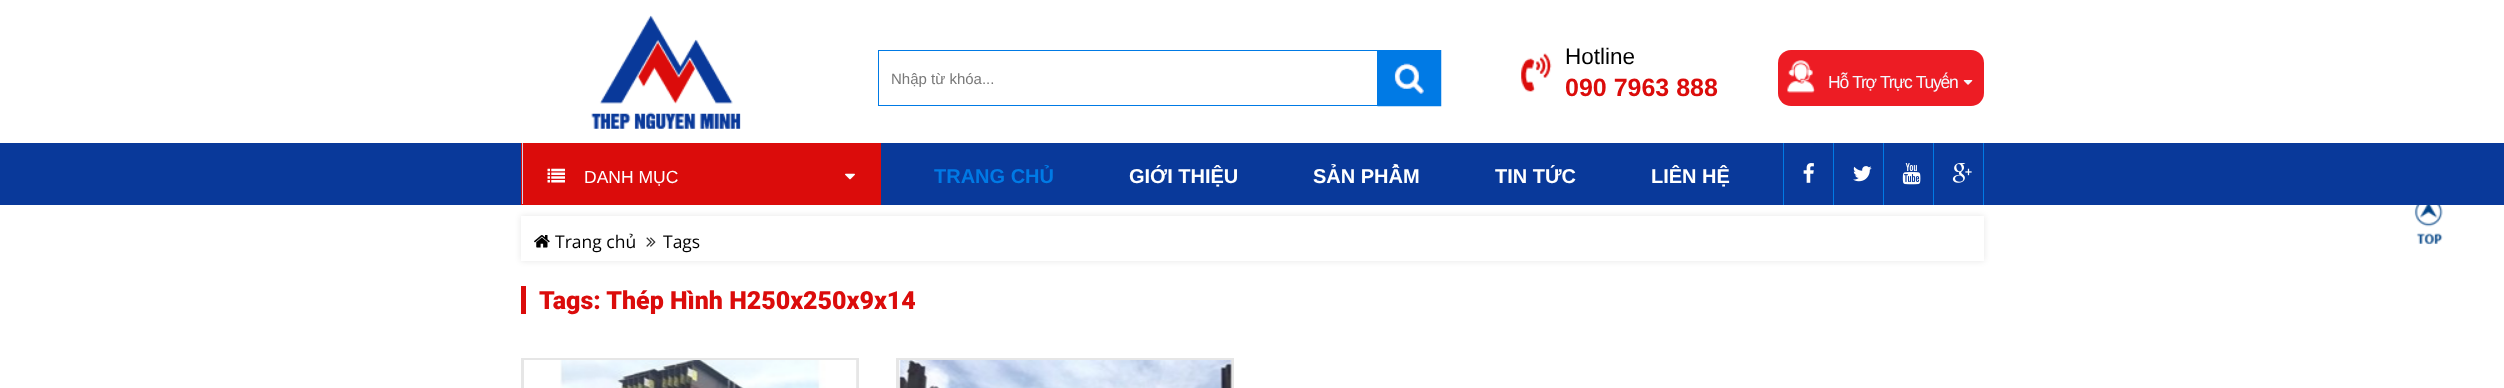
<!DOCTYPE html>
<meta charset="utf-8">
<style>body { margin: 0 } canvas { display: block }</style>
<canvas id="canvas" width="2504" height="388"></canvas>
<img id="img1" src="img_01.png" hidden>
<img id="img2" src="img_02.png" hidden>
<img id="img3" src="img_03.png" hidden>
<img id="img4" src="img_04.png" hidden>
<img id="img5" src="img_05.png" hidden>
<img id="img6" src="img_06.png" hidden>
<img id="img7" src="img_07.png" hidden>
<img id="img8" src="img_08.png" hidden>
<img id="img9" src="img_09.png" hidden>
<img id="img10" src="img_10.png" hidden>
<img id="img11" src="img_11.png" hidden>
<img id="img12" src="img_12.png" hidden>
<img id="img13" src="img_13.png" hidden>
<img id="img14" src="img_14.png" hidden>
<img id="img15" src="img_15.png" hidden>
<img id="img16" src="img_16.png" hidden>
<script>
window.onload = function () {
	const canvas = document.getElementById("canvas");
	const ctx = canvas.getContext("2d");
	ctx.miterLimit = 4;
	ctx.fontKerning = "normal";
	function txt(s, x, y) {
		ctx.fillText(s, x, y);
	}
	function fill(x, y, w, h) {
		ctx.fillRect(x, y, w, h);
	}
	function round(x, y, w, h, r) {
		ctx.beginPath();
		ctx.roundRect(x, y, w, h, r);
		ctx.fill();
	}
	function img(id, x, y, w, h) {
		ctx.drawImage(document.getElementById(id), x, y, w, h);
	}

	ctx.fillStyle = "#FFFFFF";
	fill(0, 0, 2504, 388);
	img("img1", 591, 15, 150, 114);
	ctx.strokeStyle = "#007AE5";
	ctx.strokeRect(878.5, 50.5, 499, 55);
	img("img2", 1377, 50, 65, 57);
	img("img3", 1521, 53, 31, 39);
	ctx.fillStyle = "#ED1C24";
	round(1778, 50, 206, 56, 13);
	img("img4", 1787, 60, 28, 33);
	img("img5", 1963, 80, 10, 5);
	ctx.fillStyle = "#09399A";
	fill(0, 143, 2504, 62);
	ctx.fillStyle = "#CED7EB";
	fill(522, 143, 1, 61);
	ctx.fillStyle = "#DB0C0B";
	fill(880, 143, 1, 62);
	fill(521, 204, 360, 1);
	fill(521, 143, 1, 62);
	fill(523, 143, 357, 61);
	img("img6", 547, 168, 18, 15);
	img("img7", 845, 173, 10, 7);
	ctx.fillStyle = "#007AE5";
	fill(1983, 143, 1, 62);
	fill(1783, 143, 1, 62);
	img("img8", 1803, 163, 11, 20);
	fill(1833, 143, 1, 62);
	img("img9", 1853, 166, 19, 16);
	fill(1883, 143, 1, 62);
	img("img10", 1902, 163, 19, 22);
	fill(1933, 143, 1, 62);
	img("img11", 1952, 163, 20, 20);
	img("img12", 2414, 205, 29, 40);
	ctx.save();
	ctx.beginPath();
	ctx.moveTo(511, 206);
	ctx.lineTo(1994, 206);
	ctx.lineTo(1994, 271);
	ctx.lineTo(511, 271);
	ctx.closePath();
	ctx.moveTo(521, 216);
	ctx.lineTo(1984, 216);
	ctx.lineTo(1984, 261);
	ctx.lineTo(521, 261);
	ctx.closePath();
	ctx.clip("evenodd");
	ctx.fillStyle = "rgba(0, 0, 0, 0.1)";
	ctx.filter = "blur(3px)";
	ctx.beginPath();
	ctx.rect(521, 216, 1463, 45);
	ctx.fill();
	ctx.filter = "none";
	ctx.restore();
	img("img13", 534, 235, 16, 13);
	img("img14", 646, 237, 10, 10);
	ctx.fillStyle = "#DB0C0B";
	fill(521, 286, 5, 28);
	ctx.strokeStyle = "#E6E6E6";
	ctx.lineWidth = 3;
	ctx.strokeRect(522.5, 359.5, 335, 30);
	ctx.fillStyle = "#FFFFFF";
	fill(524, 360, 332, 1);
	img("img15", 560, 360, 297, 28);
	ctx.strokeRect(897.5, 359.5, 335, 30);
	fill(899, 360, 332, 1);
	img("img16", 899, 360, 333, 28);
	ctx.font = "15px Liberation Sans";
	ctx.fillStyle = "#787878";
	txt("Nhập từ khóa...", 891, 84);
	ctx.font = "22.5px Liberation Sans";
	ctx.fillStyle = "#000000";
	txt("Hotline", 1565, 64);
	ctx.font = "bold 25px Liberation Sans";
	ctx.fillStyle = "#DB0C0B";
	txt("090 7963 888", 1565, 96);
	ctx.letterSpacing = "-1.25px";
	ctx.wordSpacing = "1px";
	ctx.font = "17.5px Liberation Sans";
	ctx.fillStyle = "#F4F8FD";
	txt("Hỗ Trợ Trực Tuyến", 1828, 88);
	ctx.letterSpacing = "0px";
	ctx.wordSpacing = "0px";
	ctx.fillStyle = "#FFFFFF";
	txt("DANH MỤC", 584, 183);
	ctx.font = "bold 20px Liberation Sans";
	ctx.fillStyle = "#007AE5";
	txt("TRANG CHỦ", 934, 183);
	ctx.fillStyle = "#FFFFFF";
	txt("GIỚI THIỆU", 1129, 183);
	txt("SẢN PHẨM", 1313, 183);
	txt("TIN TỨC", 1495, 183);
	txt("LIÊN HỆ", 1651, 183);
	ctx.font = "17.5px Open Sans";
	ctx.fillStyle = "#000000";
	txt("Trang chủ", 555, 248);
	txt("Tags", 663, 248);
	ctx.font = "900 25px Roboto";
	ctx.fillStyle = "#DB0C0B";
	txt("Tags: Thép Hình H250x250x9x14", 539, 309);
};
</script>
